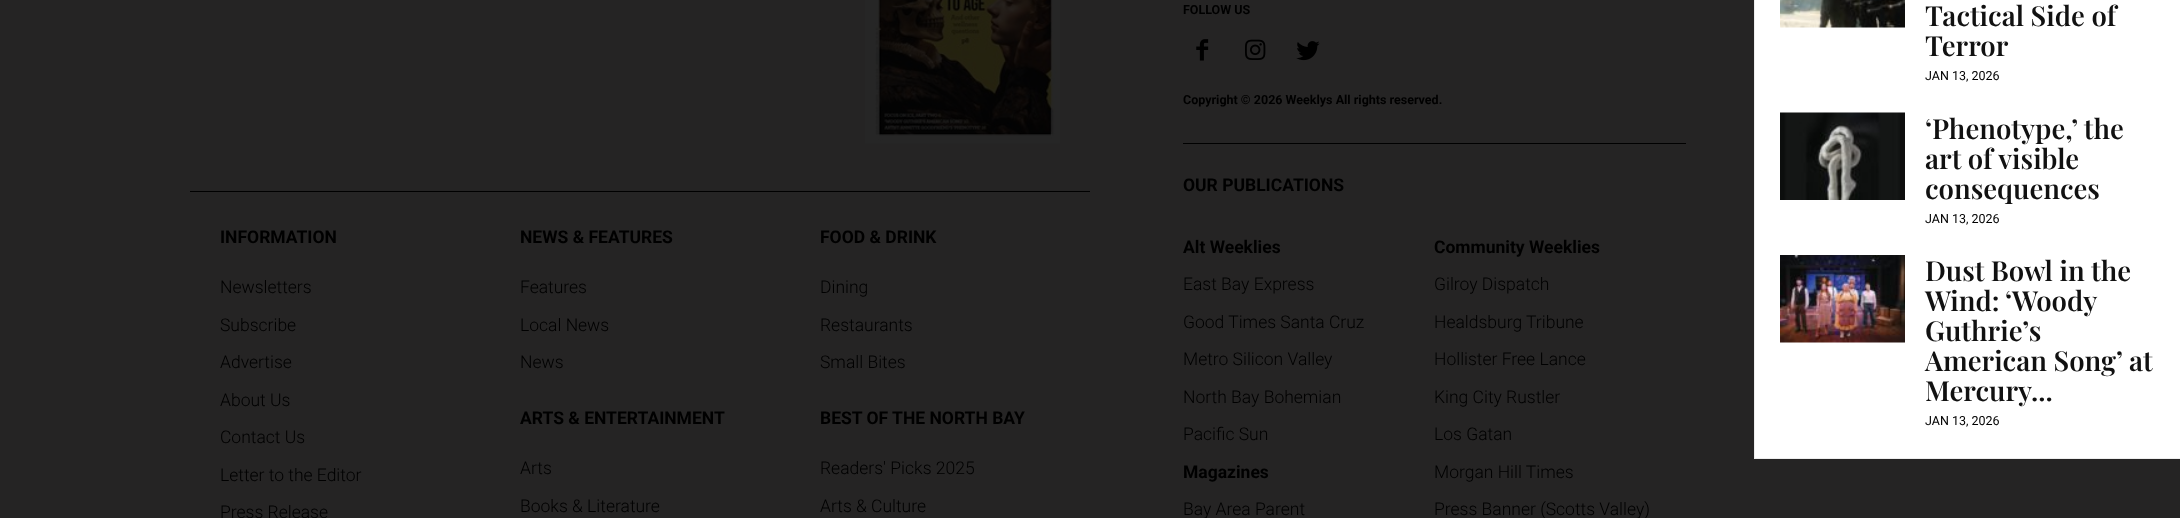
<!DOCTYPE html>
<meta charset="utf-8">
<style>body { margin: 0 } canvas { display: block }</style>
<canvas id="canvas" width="2180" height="518"></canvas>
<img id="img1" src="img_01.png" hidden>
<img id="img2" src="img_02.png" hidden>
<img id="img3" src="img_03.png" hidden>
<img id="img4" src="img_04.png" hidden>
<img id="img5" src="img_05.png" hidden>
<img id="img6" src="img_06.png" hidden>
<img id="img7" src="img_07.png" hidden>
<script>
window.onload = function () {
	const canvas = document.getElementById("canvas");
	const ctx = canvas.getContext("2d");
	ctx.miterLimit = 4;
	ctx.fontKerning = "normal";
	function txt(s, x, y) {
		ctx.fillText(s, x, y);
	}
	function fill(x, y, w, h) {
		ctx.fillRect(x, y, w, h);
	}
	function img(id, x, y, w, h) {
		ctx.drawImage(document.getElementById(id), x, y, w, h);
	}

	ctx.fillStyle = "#252424";
	fill(0, 0, 2180, 518);
	ctx.fillStyle = "#000000";
	fill(190, 191, 900, 1);
	img("img1", 865, 0, 195, 144);
	img("img2", 1196, 39, 13, 22);
	img("img3", 1245, 39, 21, 21);
	img("img4", 1296, 41, 24, 20);
	fill(1183, 143, 503, 1);
	ctx.fillStyle = "#FFFFFF";
	fill(1755, 0, 425, 458);
	ctx.fillStyle = "#EDEDED";
	fill(1754, 458, 426, 1);
	fill(1754, 0, 1, 459);
	img("img5", 1780, 0, 125, 28);
	img("img6", 1780, 112, 125, 88);
	img("img7", 1780, 255, 125, 88);
	ctx.font = "bold 17.5px Roboto";
	ctx.fillStyle = "#000000";
	txt("INFORMATION", 220, 243);
	ctx.font = "300 17.5px Roboto";
	txt("Newsletters", 220, 293);
	txt("Subscribe", 220, 331);
	txt("Advertise", 220, 368);
	txt("About Us", 220, 406);
	txt("Contact Us", 220, 443);
	txt("Letter to the Editor", 220, 481);
	txt("Press Release", 220, 518);
	ctx.font = "bold 17.5px Roboto";
	txt("NEWS & FEATURES", 520, 243);
	ctx.font = "300 17.5px Roboto";
	txt("Features", 520, 293);
	txt("Local News", 520, 331);
	txt("News", 520, 368);
	ctx.font = "bold 17.5px Roboto";
	txt("ARTS & ENTERTAINMENT", 520, 424);
	ctx.font = "300 17.5px Roboto";
	txt("Arts", 520, 474);
	txt("Books & Literature", 520, 512);
	ctx.font = "bold 17.5px Roboto";
	txt("FOOD & DRINK", 820, 243);
	ctx.font = "300 17.5px Roboto";
	txt("Dining", 820, 293);
	txt("Restaurants", 820, 331);
	txt("Small Bites", 820, 368);
	ctx.font = "bold 17.5px Roboto";
	txt("BEST OF THE NORTH BAY", 820, 424);
	ctx.font = "300 17.5px Roboto";
	txt("Readers' Picks 2025", 820, 474);
	txt("Arts & Culture", 820, 512);
	ctx.font = "bold 12.5px Roboto";
	txt("FOLLOW US", 1183, 14);
	txt("Copyright © 2026 Weeklys All rights reserved.", 1183, 104);
	ctx.font = "bold 17.5px Roboto";
	txt("OUR PUBLICATIONS", 1183, 191);
	txt("Alt Weeklies", 1183, 253);
	ctx.font = "300 17.5px Roboto";
	txt("East Bay Express", 1183, 290);
	txt("Good Times Santa Cruz", 1183, 328);
	txt("Metro Silicon Valley", 1183, 365);
	txt("North Bay Bohemian", 1183, 403);
	txt("Pacific Sun", 1183, 440);
	ctx.font = "bold 17.5px Roboto";
	txt("Magazines", 1183, 478);
	ctx.font = "300 17.5px Roboto";
	txt("Bay Area Parent", 1183, 515);
	ctx.font = "bold 17.5px Roboto";
	txt("Community Weeklies", 1434, 253);
	ctx.font = "300 17.5px Roboto";
	txt("Gilroy Dispatch", 1434, 290);
	txt("Healdsburg Tribune", 1434, 328);
	txt("Hollister Free Lance", 1434, 365);
	txt("King City Rustler", 1434, 403);
	txt("Los Gatan", 1434, 440);
	txt("Morgan Hill Times", 1434, 478);
	txt("Press Banner (Scotts Valley)", 1434, 515);
	ctx.font = "600 27.5px Playfair Display";
	ctx.fillStyle = "#111111";
	txt("Tactical Side of", 1925, 26);
	txt("Terror", 1925, 56);
	ctx.font = "12.5px Roboto";
	ctx.fillStyle = "#000000";
	txt("JAN 13, 2026", 1925, 80);
	ctx.font = "600 27.5px Playfair Display";
	ctx.fillStyle = "#111111";
	txt("‘Phenotype,’ the", 1925, 139);
	txt("art of visible", 1925, 169);
	txt("consequences", 1925, 199);
	ctx.font = "12.5px Roboto";
	ctx.fillStyle = "#000000";
	txt("JAN 13, 2026", 1925, 223);
	ctx.font = "600 27.5px Playfair Display";
	ctx.fillStyle = "#111111";
	txt("Dust Bowl in the", 1925, 281);
	ctx.wordSpacing = "-1px";
	txt("Wind: ‘Woody", 1925, 311);
	ctx.wordSpacing = "0px";
	txt("Guthrie’s", 1925, 341);
	txt("American Song’ at", 1925, 371);
	txt("Mercury...", 1925, 401);
	ctx.font = "12.5px Roboto";
	ctx.fillStyle = "#000000";
	txt("JAN 13, 2026", 1925, 425);
};
</script>
